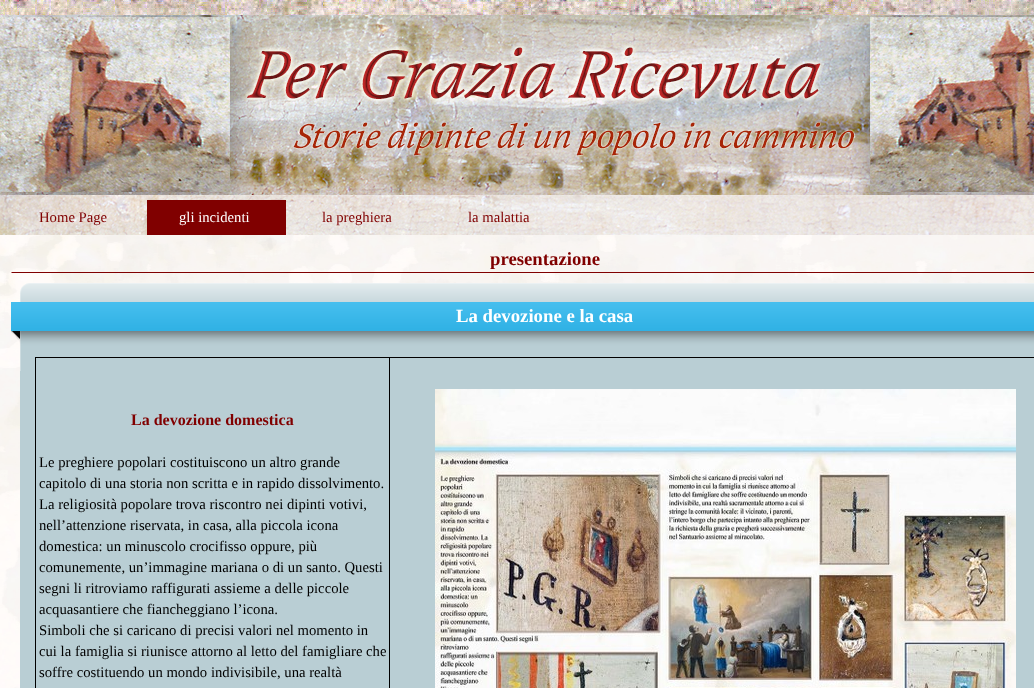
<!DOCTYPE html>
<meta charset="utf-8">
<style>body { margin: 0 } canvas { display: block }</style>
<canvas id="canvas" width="1034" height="688"></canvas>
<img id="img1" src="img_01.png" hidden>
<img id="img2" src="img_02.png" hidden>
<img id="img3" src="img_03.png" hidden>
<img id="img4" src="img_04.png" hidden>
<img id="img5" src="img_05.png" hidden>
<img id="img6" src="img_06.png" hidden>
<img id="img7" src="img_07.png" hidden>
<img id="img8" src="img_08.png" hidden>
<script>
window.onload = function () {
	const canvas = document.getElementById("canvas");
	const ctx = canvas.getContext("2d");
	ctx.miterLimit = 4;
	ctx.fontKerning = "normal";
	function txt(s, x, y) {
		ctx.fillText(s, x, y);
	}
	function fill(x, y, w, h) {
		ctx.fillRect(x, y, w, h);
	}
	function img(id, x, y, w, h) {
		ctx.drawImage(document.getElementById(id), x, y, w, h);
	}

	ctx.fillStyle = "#FFFFFF";
	fill(0, 0, 1034, 688);
	img("img1", 0, 235, 1034, 453);
	img("img2", 0, 0, 1034, 15);
	img("img3", 0, 15, 1034, 180);
	img("img4", 0, 195, 1034, 40);
	ctx.fillStyle = "#800000";
	fill(147, 200, 139, 35);
	ctx.beginPath();
	ctx.moveTo(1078, 273);
	ctx.lineTo(11, 273);
	ctx.lineTo(12, 272);
	ctx.lineTo(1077, 272);
	ctx.closePath();
	ctx.fill();
	img("img5", 10, 283, 74, 88);
	img("img6", 84, 283, 921, 88);
	img("img7", 1005, 283, 29, 88);
	ctx.fillStyle = "#B9CED4";
	fill(20, 371, 1014, 317);
	ctx.fillStyle = "#000000";
	fill(389, 357, 645, 1);
	fill(389, 357, 1, 331);
	fill(35, 357, 355, 1);
	fill(35, 357, 1, 331);
	img("img8", 435, 389, 581, 299);
	ctx.font = "14.7px Liberation Serif";
	ctx.fillStyle = "#800000";
	txt("Home Page", 39, 222);
	ctx.fillStyle = "#FFFFFF";
	txt("gli incidenti", 179, 222);
	ctx.fillStyle = "#800000";
	txt("la preghiera", 322, 222);
	txt("la malattia", 468, 222);
	ctx.font = "bold 18.75px Liberation Serif";
	txt("presentazione", 490, 265);
	ctx.fillStyle = "#FFFFFF";
	txt("La devozione e la casa", 456, 322);
	ctx.font = "bold 16px Liberation Serif";
	ctx.fillStyle = "#800000";
	txt("La devozione domestica", 131, 425);
	ctx.font = "14.7px Liberation Serif";
	ctx.fillStyle = "#000000";
	txt("Le preghiere popolari costituiscono un altro grande", 39, 467);
	txt("capitolo di una storia non scritta e in rapido dissolvimento.", 39, 488);
	txt("La religiosità popolare trova riscontro nei dipinti votivi,", 39, 509);
	txt("nell’attenzione riservata, in casa, alla piccola icona", 39, 530);
	txt("domestica: un minuscolo crocifisso oppure, più", 39, 551);
	txt("comunemente, un’immagine mariana o di un santo. Questi", 39, 572);
	txt("segni li ritroviamo raffigurati assieme a delle piccole", 39, 593);
	txt("acquasantiere che fiancheggiano l’icona.", 39, 614);
	txt("Simboli che si caricano di precisi valori nel momento in", 39, 635);
	txt("cui la famiglia si riunisce attorno al letto del famigliare che", 39, 656);
	txt("soffre costituendo un mondo indivisibile, una realtà", 39, 677);
};
</script>
